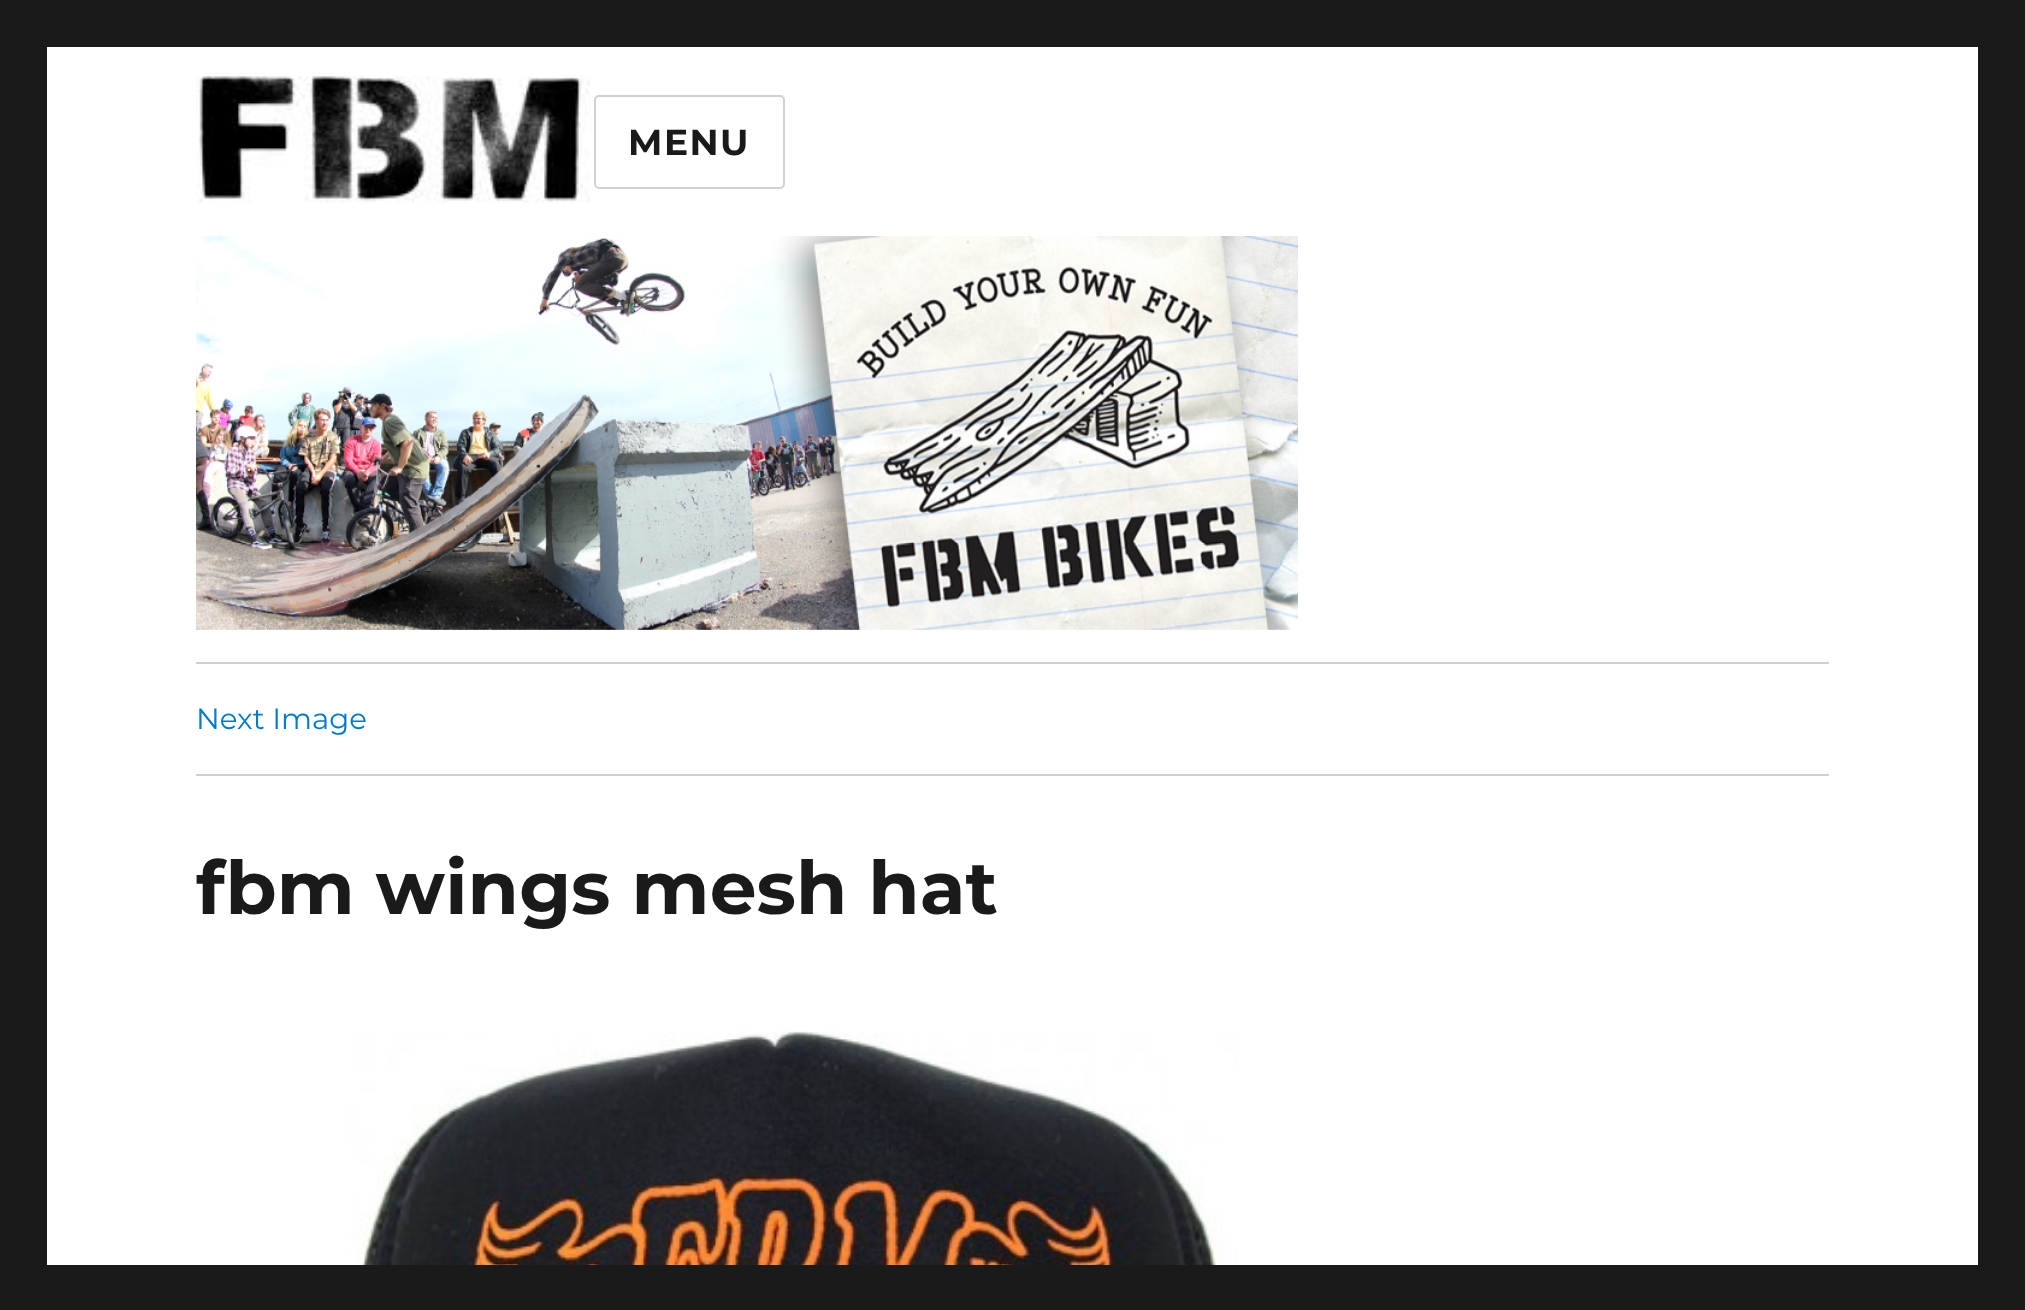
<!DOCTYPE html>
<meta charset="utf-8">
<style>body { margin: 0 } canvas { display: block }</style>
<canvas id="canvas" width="2025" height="1310"></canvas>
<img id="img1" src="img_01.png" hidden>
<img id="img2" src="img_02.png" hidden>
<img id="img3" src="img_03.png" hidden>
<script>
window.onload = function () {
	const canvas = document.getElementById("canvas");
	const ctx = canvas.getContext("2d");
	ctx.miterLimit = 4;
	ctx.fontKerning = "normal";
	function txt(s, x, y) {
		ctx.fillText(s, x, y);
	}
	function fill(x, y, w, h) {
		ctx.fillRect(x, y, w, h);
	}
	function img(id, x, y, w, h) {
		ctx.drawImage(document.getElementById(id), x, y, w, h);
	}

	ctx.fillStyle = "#1A1A1A";
	fill(0, 0, 2025, 1310);
	ctx.fillStyle = "#FFFFFF";
	fill(47, 47, 1931, 1218);
	img("img1", 196, 76, 395, 127);
	ctx.beginPath();
	ctx.roundRect(595, 96, 189, 92, 4);
	ctx.strokeStyle = "#D1D1D1";
	ctx.lineWidth = 2;
	ctx.stroke();
	img("img2", 196, 236, 1102, 394);
	ctx.fillStyle = "#D1D1D1";
	fill(196, 662, 1633, 2);
	fill(196, 774, 1633, 2);
	img("img3", 347, 1031, 891, 234);
	ctx.letterSpacing = "1.5px";
	ctx.font = "100 36px Montserrat";
	ctx.fillStyle = "#1A1A1A";
	txt("MENU", 628, 155);
	ctx.letterSpacing = "0px";
	ctx.font = "100 29.25px 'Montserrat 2'";
	ctx.fillStyle = "#007ACC";
	txt("Next Image", 196, 729);
	ctx.font = "100 74.25px Montserrat";
	ctx.fillStyle = "#1A1A1A";
	txt("fbm wings mesh hat", 196, 914);
};
</script>
